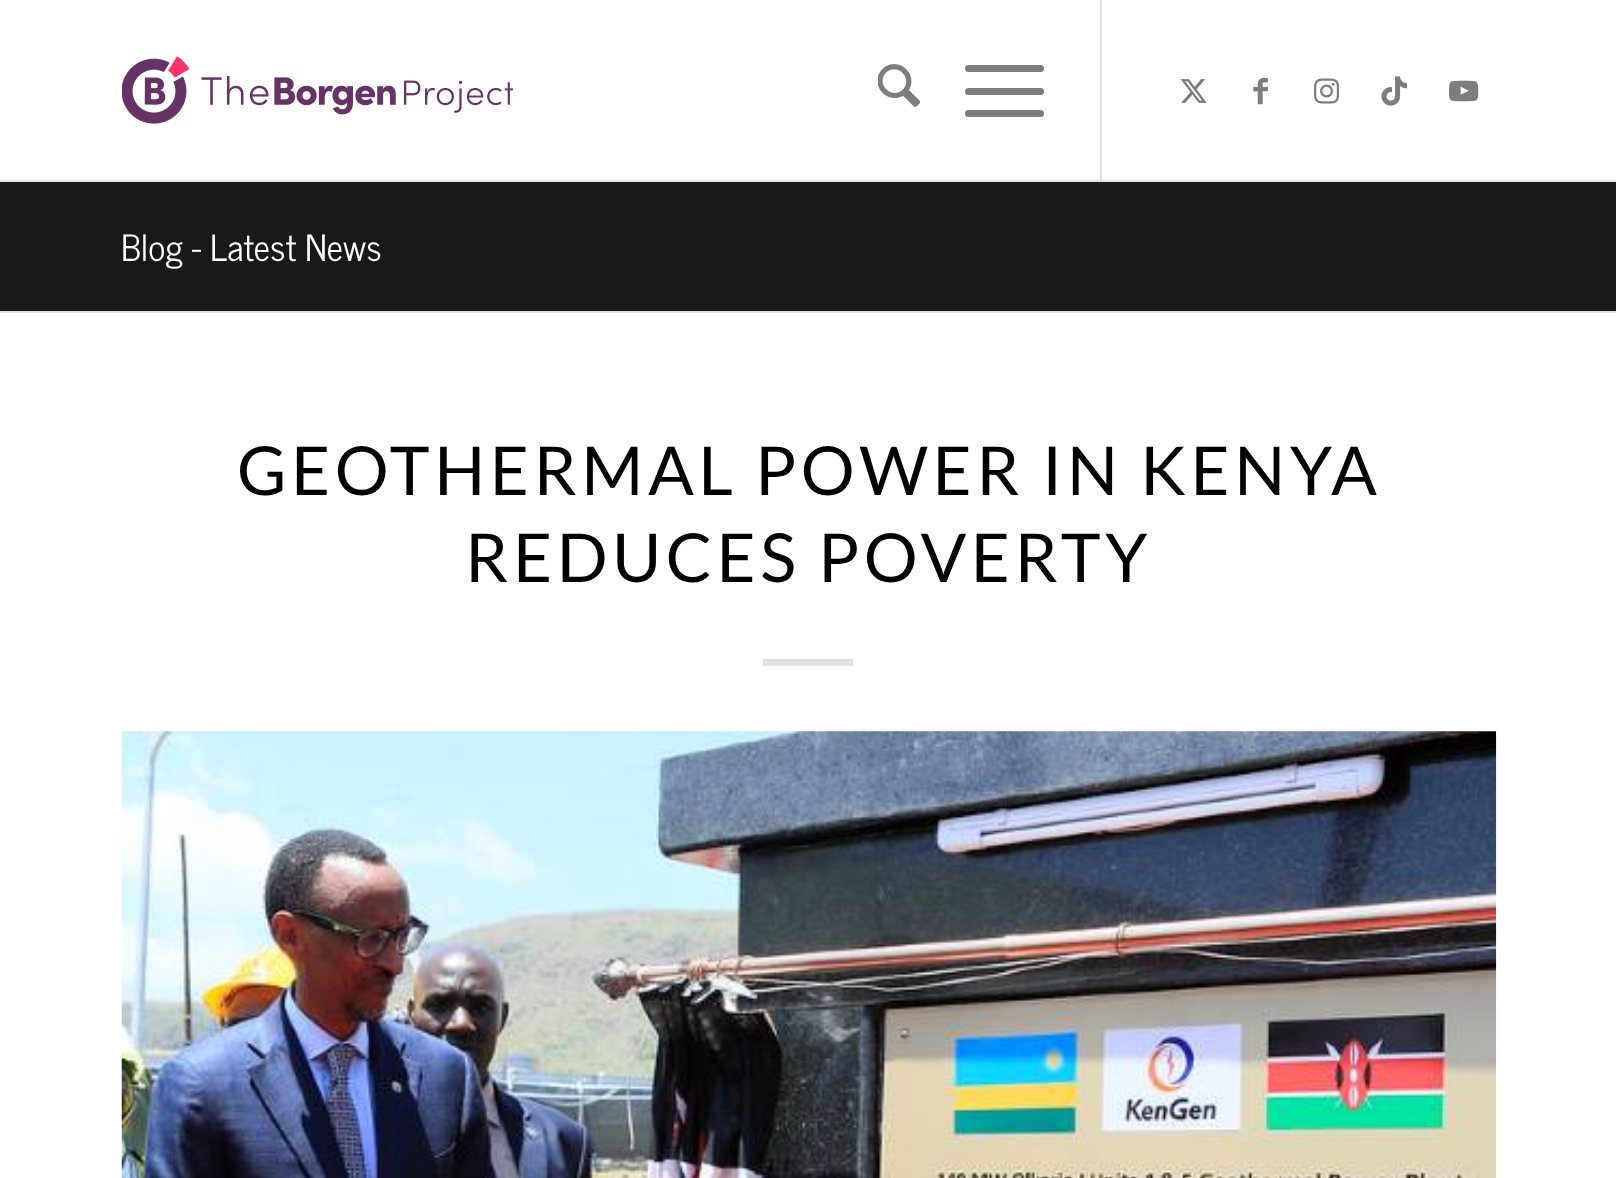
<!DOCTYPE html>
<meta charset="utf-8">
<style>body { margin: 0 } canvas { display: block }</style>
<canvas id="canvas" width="1616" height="1178"></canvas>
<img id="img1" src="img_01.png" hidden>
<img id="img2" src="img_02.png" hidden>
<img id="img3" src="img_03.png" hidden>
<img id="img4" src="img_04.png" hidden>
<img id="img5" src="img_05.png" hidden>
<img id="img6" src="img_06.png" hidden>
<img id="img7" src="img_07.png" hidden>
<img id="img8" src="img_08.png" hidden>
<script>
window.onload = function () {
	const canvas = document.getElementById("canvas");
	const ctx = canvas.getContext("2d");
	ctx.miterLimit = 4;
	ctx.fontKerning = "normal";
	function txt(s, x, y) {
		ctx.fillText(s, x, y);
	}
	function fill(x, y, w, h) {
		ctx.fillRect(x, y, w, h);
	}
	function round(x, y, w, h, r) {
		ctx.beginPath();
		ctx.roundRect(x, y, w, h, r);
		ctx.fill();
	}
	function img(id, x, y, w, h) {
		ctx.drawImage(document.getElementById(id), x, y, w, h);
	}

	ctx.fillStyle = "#FFFFFF";
	fill(0, 0, 1616, 1178);
	ctx.fillStyle = "#E1E1E1";
	fill(0, 180, 1616, 2);
	img("img1", 122, 56, 391, 68);
	fill(1100, 0, 2, 180);
	img("img2", 878, 64, 42, 43);
	ctx.fillStyle = "#7D7D7D";
	round(965, 88, 79, 7, 3.5);
	round(965, 65, 79, 7, 3.5);
	round(965, 110, 79, 7, 3.5);
	img("img3", 1180, 79, 27, 24);
	img("img4", 1253, 77, 15, 28);
	img("img5", 1314, 78, 26, 26);
	img("img6", 1381, 76, 27, 30);
	img("img7", 1449, 80, 30, 22);
	ctx.fillStyle = "#191919";
	fill(0, 182, 1616, 129);
	ctx.fillStyle = "#E1E1E1";
	fill(0, 311, 1616, 2);
	fill(763, 659, 90, 7);
	img("img8", 121, 731, 1376, 447);
	ctx.font = "36px News Cycle";
	ctx.fillStyle = "#FFFFFF";
	txt("Blog - Latest News", 121, 261);
	ctx.letterSpacing = "4.5px";
	ctx.font = "67.5px Lato";
	ctx.fillStyle = "#000000";
	txt("GEOTHERMAL POWER IN KENYA", 237, 495);
	txt("REDUCES POVERTY", 465, 582);
};
</script>
